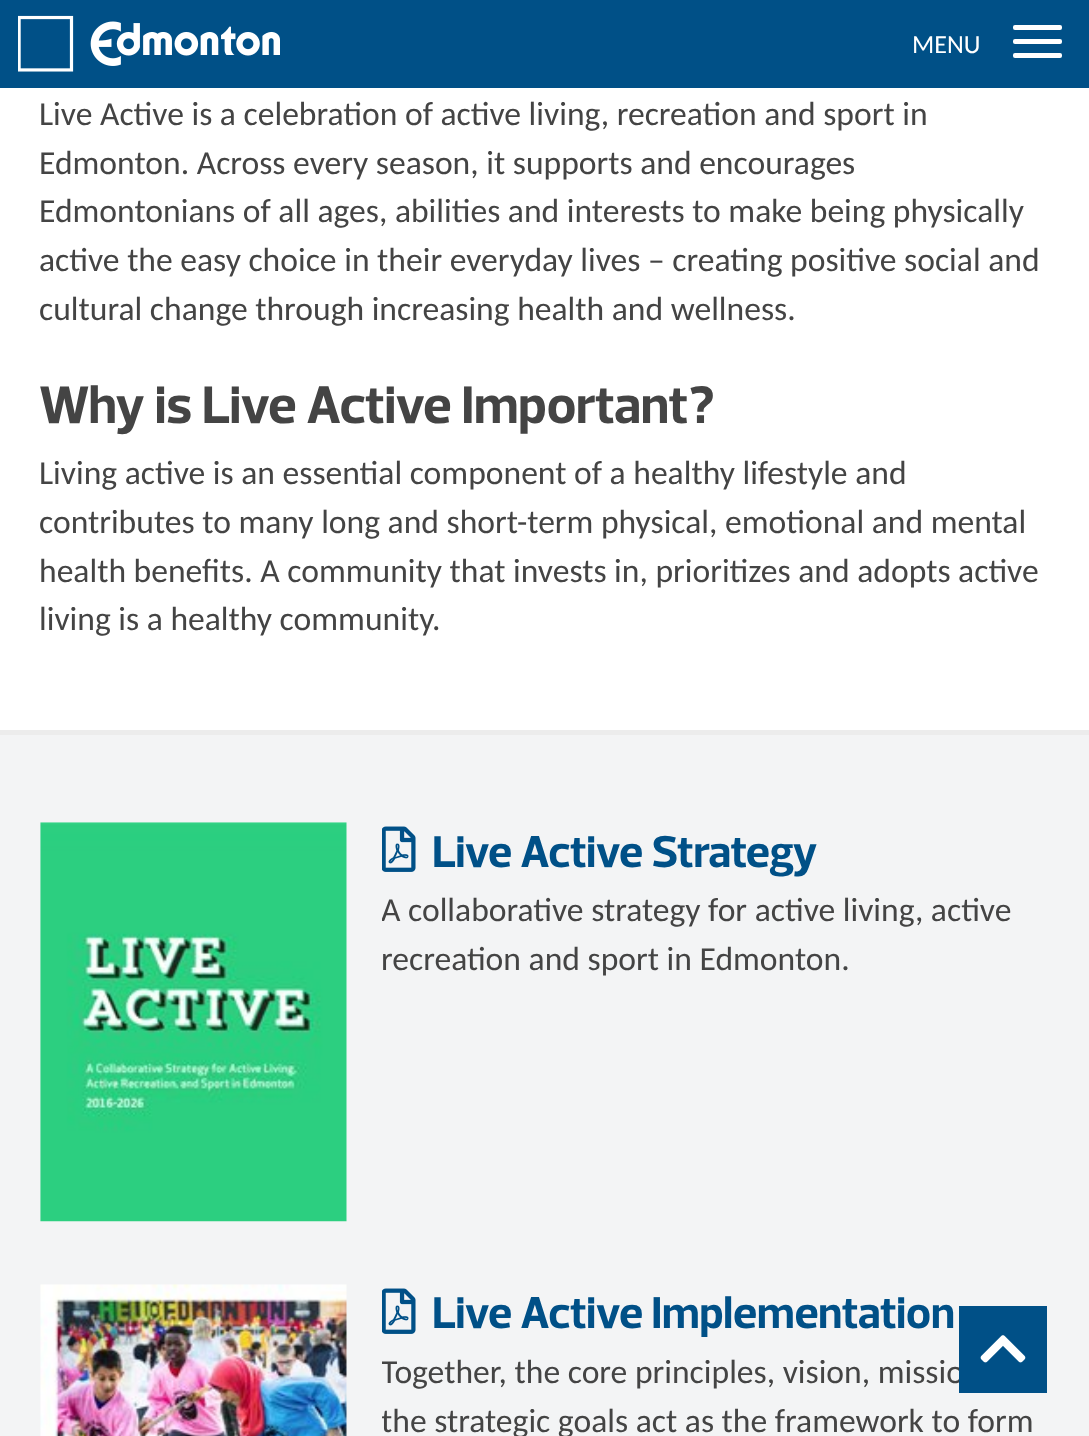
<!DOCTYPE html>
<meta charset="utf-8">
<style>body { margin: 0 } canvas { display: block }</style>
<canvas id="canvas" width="1089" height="1436"></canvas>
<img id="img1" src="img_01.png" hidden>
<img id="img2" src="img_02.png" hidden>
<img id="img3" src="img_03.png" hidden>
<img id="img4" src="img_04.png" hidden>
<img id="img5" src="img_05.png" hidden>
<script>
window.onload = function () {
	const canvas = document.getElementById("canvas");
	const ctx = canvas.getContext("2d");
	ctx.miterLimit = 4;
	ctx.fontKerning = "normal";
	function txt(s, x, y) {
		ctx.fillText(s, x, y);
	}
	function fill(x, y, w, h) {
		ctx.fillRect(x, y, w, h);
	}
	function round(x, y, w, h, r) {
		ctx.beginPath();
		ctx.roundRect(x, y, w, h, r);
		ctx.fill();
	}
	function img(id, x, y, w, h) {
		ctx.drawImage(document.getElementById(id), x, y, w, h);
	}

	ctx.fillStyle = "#FFFFFF";
	fill(0, 0, 1089, 1436);
	ctx.fillStyle = "#005087";
	fill(0, 0, 1089, 88);
	img("img1", 18, 15, 262, 57);
	ctx.fillStyle = "#FFFFFF";
	round(1013, 39, 49, 5, 2);
	round(1013, 25, 49, 5, 2);
	round(1013, 53, 49, 5, 2);
	ctx.fillStyle = "#ECECEC";
	fill(0, 730, 1089, 5);
	ctx.fillStyle = "#F3F4F5";
	fill(0, 735, 1089, 701);
	img("img2", 40, 822, 307, 400);
	img("img3", 382, 826, 34, 46);
	img("img4", 40, 1284, 307, 152);
	img("img3", 382, 1288, 34, 46);
	ctx.font = "26px Carlito";
	ctx.fillStyle = "#FFFFFF";
	txt("MENU", 912, 53);
	ctx.font = "33.6px Carlito";
	ctx.fillStyle = "#444444";
	txt("Live Active is a celebration of active living, recreation and sport in", 39, 125);
	txt("Edmonton. Across every season, it supports and encourages", 39, 174);
	txt("Edmontonians of all ages, abilities and interests to make being physically", 39, 222);
	txt("active the easy choice in their everyday lives – creating positive social and", 39, 271);
	txt("cultural change through increasing health and wellness.", 39, 320);
	ctx.font = "bold 53.75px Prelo";
	txt("Why is Live Active Important?", 39, 423);
	ctx.font = "33.6px Carlito";
	txt("Living active is an essential component of a healthy lifestyle and", 39, 484);
	txt("contributes to many long and short-term physical, emotional and mental", 39, 533);
	txt("health benefits. A community that invests in, prioritizes and adopts active", 39, 582);
	txt("living is a healthy community.", 39, 630);
	ctx.font = "bold 45.4px Prelo";
	ctx.fillStyle = "#005087";
	txt("Live Active Strategy", 432, 867);
	ctx.save();
	ctx.beginPath();
	ctx.rect(382, 887, 670, 97);
	ctx.clip();
	ctx.font = "33.6px Carlito";
	ctx.fillStyle = "#444444";
	txt("A collaborative strategy for active living, active", 381, 921);
	ctx.restore();
	ctx.font = "33.6px Carlito";
	ctx.fillStyle = "#444444";
	txt("recreation and sport in Edmonton.", 381, 970);
	ctx.font = "bold 45.4px Prelo";
	ctx.fillStyle = "#005087";
	txt("Live Active Implementation", 432, 1328);
	ctx.save();
	ctx.beginPath();
	ctx.rect(382, 1348, 670, 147);
	ctx.clip();
	ctx.font = "33.6px Carlito";
	ctx.fillStyle = "#444444";
	txt("Together, the core principles, vision, missio", 381, 1383);
	txt("the strategic goals act as the framework to form", 381, 1432);
	ctx.restore();
	fill(959, 1306, 88, 87);
	img("img5", 980, 1335, 46, 28);
};
</script>
